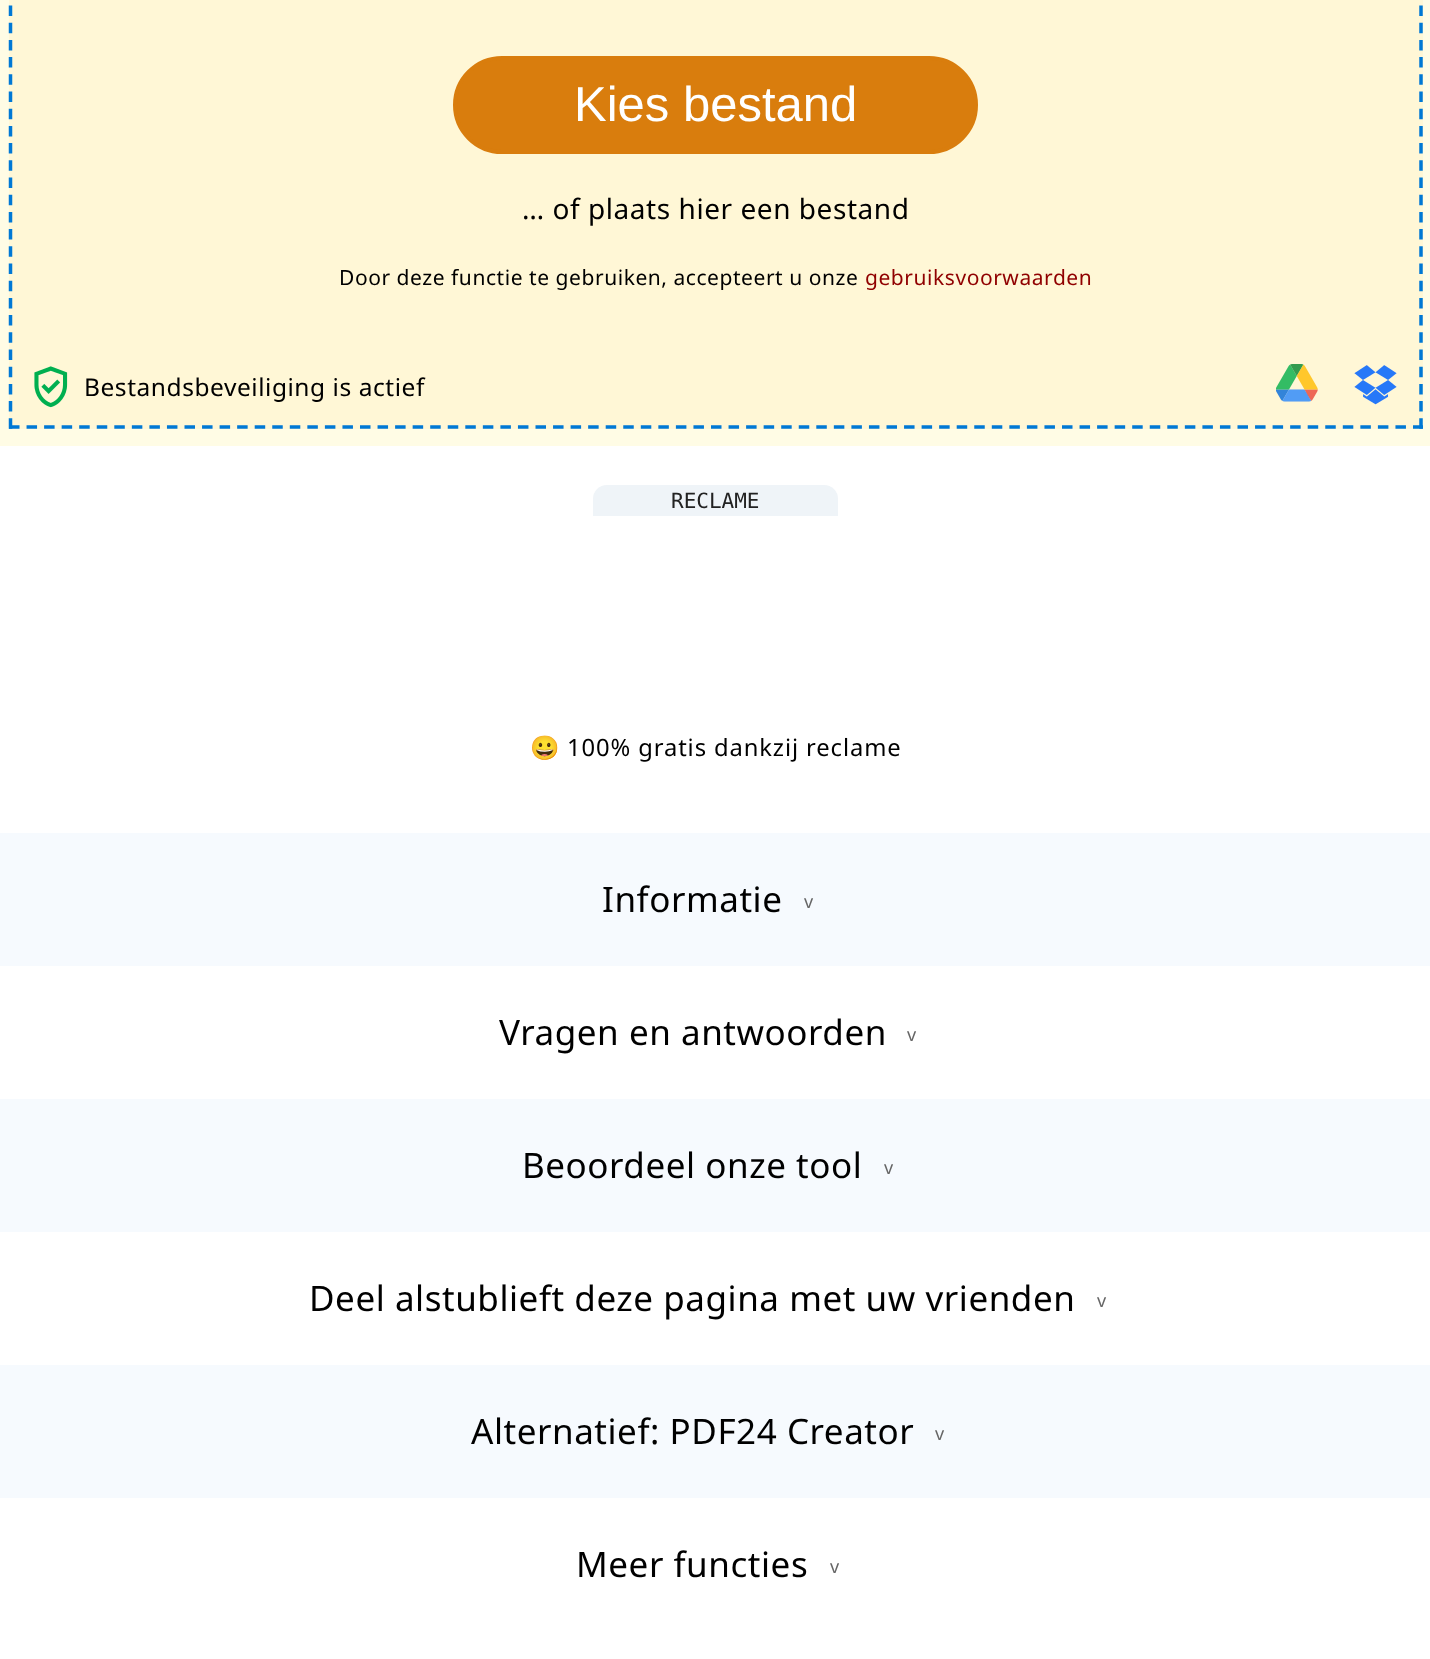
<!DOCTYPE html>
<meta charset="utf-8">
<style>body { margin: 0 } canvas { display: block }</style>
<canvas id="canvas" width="1430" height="1659"></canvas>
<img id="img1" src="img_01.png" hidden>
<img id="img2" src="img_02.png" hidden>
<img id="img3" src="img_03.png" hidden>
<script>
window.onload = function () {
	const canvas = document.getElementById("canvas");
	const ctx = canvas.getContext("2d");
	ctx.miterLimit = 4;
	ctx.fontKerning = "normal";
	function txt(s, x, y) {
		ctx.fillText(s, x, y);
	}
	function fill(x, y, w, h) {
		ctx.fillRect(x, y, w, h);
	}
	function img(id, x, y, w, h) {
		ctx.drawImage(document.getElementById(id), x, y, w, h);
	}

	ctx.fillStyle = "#FFFFFF";
	fill(0, 0, 1430, 1659);
	ctx.strokeStyle = "#FFFCE5";
	ctx.lineWidth = 18;
	ctx.strokeRect(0, -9, 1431, 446);
	ctx.fillStyle = "#FFF7D6";
	fill(9, 0, 1414, 429);
	ctx.beginPath();
	ctx.moveTo(1421, -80.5);
	ctx.lineTo(1421, 429);
	ctx.strokeStyle = "#0078D5";
	ctx.lineWidth = 3.5;
	ctx.setLineDash([10.5, 6.7]);
	ctx.stroke();
	ctx.beginPath();
	ctx.moveTo(9, 427);
	ctx.lineTo(1423, 427);
	ctx.setLineDash([10.5, 7.05]);
	ctx.stroke();
	ctx.beginPath();
	ctx.moveTo(10.5, -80.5);
	ctx.lineTo(10.5, 429);
	ctx.setLineDash([10.5, 6.7]);
	ctx.stroke();
	ctx.fillStyle = "#D97D0D";
	ctx.beginPath();
	ctx.roundRect(455, 58, 521, 94, 47);
	ctx.fill();
	ctx.strokeStyle = "#D97D0D";
	ctx.lineWidth = 4;
	ctx.setLineDash([]);
	ctx.stroke();
	img("img1", 34, 366, 34, 42);
	img("img2", 1276, 364, 42, 38);
	img("img3", 1354, 365, 43, 40);
	ctx.fillStyle = "#EFF4F8";
	ctx.beginPath();
	ctx.roundRect(593, 485, 245, 31, [14, 14, 0, 0]);
	ctx.fill();
	ctx.fillStyle = "#F6FAFE";
	fill(0, 833, 1430, 133);
	fill(0, 1099, 1430, 133);
	fill(0, 1365, 1430, 133);
	ctx.font = "49px Liberation Sans";
	ctx.fillStyle = "#FFFFFF";
	txt("Kies bestand", 574, 121);
	ctx.letterSpacing = "0.55px";
	ctx.font = "28px Noto Sans";
	ctx.fillStyle = "#000000";
	txt("… of plaats hier een bestand", 522, 219);
	ctx.font = "21px Noto Sans";
	txt("Door deze functie te gebruiken, accepteert u onze", 339, 285);
	ctx.fillStyle = "#900000";
	txt("gebruiksvoorwaarden", 865, 285);
	ctx.font = "24.5px Noto Sans";
	ctx.fillStyle = "#000000";
	txt("Bestandsbeveiliging is actief", 84, 396);
	ctx.letterSpacing = "0px";
	ctx.font = "21px DejaVu Sans Mono";
	ctx.fillStyle = "#222222";
	txt("RECLAME", 671, 508);
	ctx.letterSpacing = "0.9px";
	ctx.font = "23.75px Noto Color Emoji";
	ctx.fillStyle = "#000000";
	txt("😀", 530, 756);
	ctx.font = "23.75px Noto Sans";
	txt("100% gratis dankzij reclame", 567, 756);
	ctx.letterSpacing = "0.55px";
	ctx.font = "35px Noto Sans";
	txt("Informatie", 602, 912);
	ctx.letterSpacing = "13px";
	ctx.font = "18px Noto Sans";
	ctx.fillStyle = "#666666";
	txt("v", 804, 908);
	ctx.letterSpacing = "0.55px";
	ctx.font = "35px Noto Sans";
	ctx.fillStyle = "#000000";
	txt("Vragen en antwoorden", 499, 1045);
	ctx.letterSpacing = "13px";
	ctx.font = "18px Noto Sans";
	ctx.fillStyle = "#666666";
	txt("v", 907, 1041);
	ctx.letterSpacing = "0.55px";
	ctx.font = "35px Noto Sans";
	ctx.fillStyle = "#000000";
	txt("Beoordeel onze tool", 522, 1178);
	ctx.letterSpacing = "13px";
	ctx.font = "18px Noto Sans";
	ctx.fillStyle = "#666666";
	txt("v", 884, 1174);
	ctx.letterSpacing = "0.55px";
	ctx.font = "35px Noto Sans";
	ctx.fillStyle = "#000000";
	txt("Deel alstublieft deze pagina met uw vrienden", 309, 1311);
	ctx.letterSpacing = "13px";
	ctx.font = "18px Noto Sans";
	ctx.fillStyle = "#666666";
	txt("v", 1097, 1307);
	ctx.letterSpacing = "0.55px";
	ctx.font = "35px Noto Sans";
	ctx.fillStyle = "#000000";
	txt("Alternatief: PDF24 Creator", 471, 1444);
	ctx.letterSpacing = "13px";
	ctx.font = "18px Noto Sans";
	ctx.fillStyle = "#666666";
	txt("v", 935, 1440);
	ctx.letterSpacing = "0.55px";
	ctx.font = "35px Noto Sans";
	ctx.fillStyle = "#000000";
	txt("Meer functies", 576, 1577);
	ctx.letterSpacing = "13px";
	ctx.font = "18px Noto Sans";
	ctx.fillStyle = "#666666";
	txt("v", 830, 1573);
};
</script>
